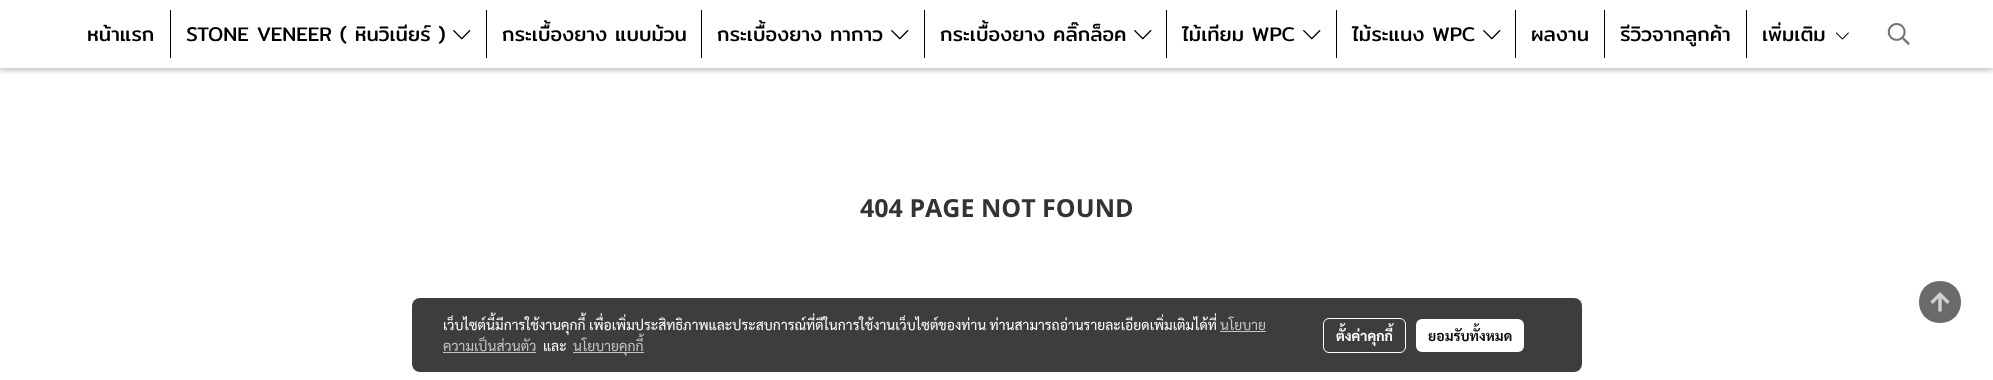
<!DOCTYPE html>
<meta charset="utf-8">
<style>body { margin: 0 } canvas { display: block }</style>
<canvas id="canvas" width="1993" height="380"></canvas>
<img id="img1" src="img_01.png" hidden>
<img id="img2" src="img_02.png" hidden>
<img id="img3" src="img_03.png" hidden>
<img id="img4" src="img_04.png" hidden>
<script>
window.onload = function () {
	const canvas = document.getElementById("canvas");
	const ctx = canvas.getContext("2d");
	ctx.miterLimit = 4;
	ctx.fontKerning = "normal";
	function txt(s, x, y) {
		ctx.fillText(s, x, y);
	}
	function fill(x, y, w, h) {
		ctx.fillRect(x, y, w, h);
	}
	function round(x, y, w, h, r) {
		ctx.beginPath();
		ctx.roundRect(x, y, w, h, r);
		ctx.fill();
	}
	function img(id, x, y, w, h) {
		ctx.drawImage(document.getElementById(id), x, y, w, h);
	}

	ctx.fillStyle = "#FFFFFF";
	fill(0, 0, 1993, 380);
	ctx.save();
	ctx.beginPath();
	ctx.rect(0, 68, 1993, 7);
	ctx.clip();
	ctx.fillStyle = "rgba(0, 0, 0, 0.12)";
	ctx.filter = "blur(5px)";
	ctx.beginPath();
	ctx.rect(0, 2, 1993, 68);
	ctx.fill();
	ctx.filter = "none";
	ctx.restore();
	ctx.save();
	ctx.beginPath();
	ctx.rect(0, 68, 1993, 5);
	ctx.clip();
	ctx.fillStyle = "rgba(0, 0, 0, 0.16)";
	ctx.filter = "blur(2.5px)";
	ctx.beginPath();
	ctx.rect(0, 2, 1993, 68);
	ctx.fill();
	ctx.filter = "none";
	ctx.restore();
	ctx.fillStyle = "#000000";
	fill(170, 10, 1, 48);
	fill(486, 10, 1, 48);
	img("img1", 453, 30, 18, 10);
	fill(701, 10, 1, 48);
	fill(924, 10, 1, 48);
	img("img1", 891, 30, 18, 10);
	fill(1166, 10, 1, 48);
	img("img1", 1134, 30, 18, 10);
	fill(1336, 10, 1, 48);
	img("img1", 1303, 30, 18, 10);
	fill(1515, 10, 1, 48);
	img("img1", 1483, 30, 18, 10);
	fill(1604, 10, 1, 48);
	fill(1746, 10, 1, 48);
	img("img2", 1835, 32, 14, 8);
	img("img3", 1887, 23, 23, 22);
	ctx.fillStyle = "#6B6A6A";
	ctx.beginPath();
	ctx.moveTo(1940, 281);
	ctx.bezierCurveTo(1912, 281, 1912, 323, 1940, 323);
	ctx.bezierCurveTo(1968, 323, 1968, 281, 1940, 281);
	ctx.closePath();
	ctx.fill();
	img("img4", 1930, 292, 20, 20);
	ctx.fillStyle = "#3D3D3D";
	round(412, 298, 1170, 74, 8);
	ctx.fillStyle = "#C5C5C5";
	fill(1220, 331, 46, 1);
	fill(443, 352, 93, 1);
	fill(573, 352, 71, 1);
	ctx.beginPath();
	ctx.roundRect(1323.5, 318.5, 82, 34, 5.5);
	ctx.strokeStyle = "#FFFFFF";
	ctx.stroke();
	ctx.fillStyle = "#FFFFFF";
	round(1416, 319, 108, 33, 6);
	ctx.font = "20px Mitr";
	ctx.fillStyle = "#000000";
	txt("หน้าแรก", 87, 41);
	txt("STONE VENEER ( หินวิเนียร์ )", 186, 41);
	txt("กระเบื้องยาง แบบม้วน", 502, 41);
	txt("กระเบื้องยาง ทากาว", 717, 41);
	txt("กระเบื้องยาง คลิ๊กล็อค", 940, 41);
	txt("ไม้เทียม WPC", 1182, 41);
	txt("ไม้ระแนง WPC", 1352, 41);
	txt("ผลงาน", 1531, 41);
	txt("รีวิวจากลูกค้า", 1620, 41);
	txt("เพิ่มเติม", 1762, 41);
	ctx.font = "bold 25px Open Sans";
	ctx.fillStyle = "#333333";
	txt("404 PAGE NOT FOUND", 860, 217);
	ctx.font = "14px Sarabun";
	ctx.fillStyle = "#FFFFFF";
	txt("เว็บไซต์นี้มีการใช้งานคุกกี้ เพื่อเพิ่มประสิทธิภาพและประสบการณ์ที่ดีในการใช้งานเว็บไซต์ของท่าน ท่านสามารถอ่านรายละเอียดเพิ่มเติมได้ที่", 443, 330);
	ctx.fillStyle = "#C5C5C5";
	txt("นโยบาย", 1220, 330);
	txt("ความเป็นส่วนตัว", 443, 351);
	ctx.fillStyle = "#FFFFFF";
	txt("และ", 543, 351);
	ctx.fillStyle = "#C5C5C5";
	txt("นโยบายคุกกี้", 573, 351);
	ctx.font = "bold 14px Sarabun";
	ctx.fillStyle = "#FFFFFF";
	txt("ตั้งค่าคุกกี้", 1336, 341);
	ctx.fillStyle = "#0D0D0D";
	txt("ยอมรับทั้งหมด", 1428, 341);
};
</script>
